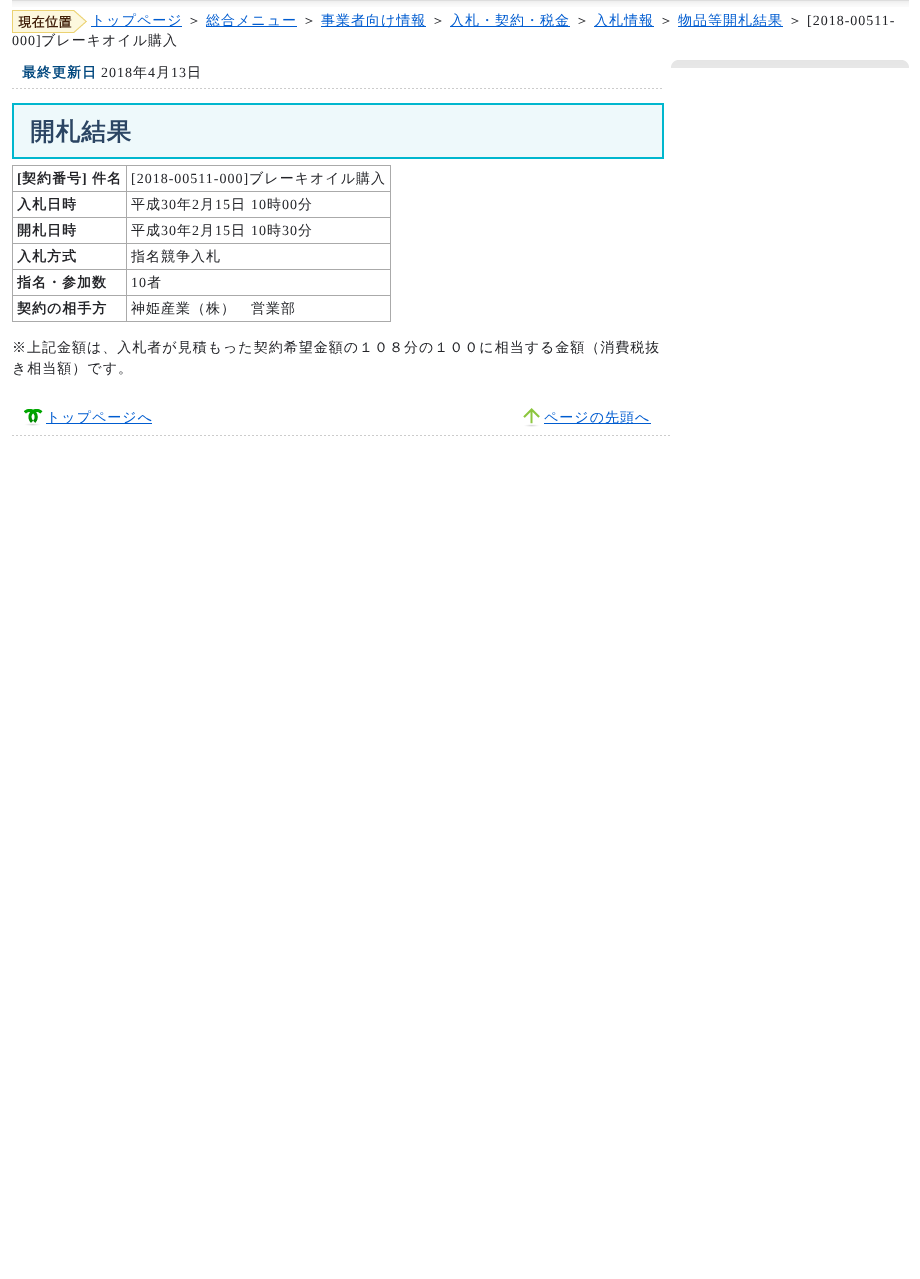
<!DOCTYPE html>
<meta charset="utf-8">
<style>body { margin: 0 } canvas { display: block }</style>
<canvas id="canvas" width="920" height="1279"></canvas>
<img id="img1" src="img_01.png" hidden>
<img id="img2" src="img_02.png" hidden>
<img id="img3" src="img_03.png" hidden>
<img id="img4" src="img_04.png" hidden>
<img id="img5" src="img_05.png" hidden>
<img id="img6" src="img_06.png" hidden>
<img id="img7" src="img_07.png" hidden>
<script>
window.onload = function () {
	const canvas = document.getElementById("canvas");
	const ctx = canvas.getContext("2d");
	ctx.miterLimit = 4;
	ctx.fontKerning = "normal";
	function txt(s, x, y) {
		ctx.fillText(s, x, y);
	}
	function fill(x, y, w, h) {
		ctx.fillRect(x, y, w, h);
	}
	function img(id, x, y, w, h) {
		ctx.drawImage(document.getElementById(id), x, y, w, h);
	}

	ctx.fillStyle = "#FFFFFF";
	fill(0, 0, 920, 1279);
	img("img1", 12, 1, 897, 6);
	ctx.fillStyle = "#DDDDDD";
	fill(12, 0, 897, 1);
	img("img2", 12, 10, 75, 23);
	ctx.fillStyle = "#005CD0";
	fill(91, 26, 91, 1);
	fill(206, 26, 91, 1);
	fill(321, 26, 105, 1);
	fill(450, 26, 120, 1);
	fill(594, 26, 60, 1);
	fill(678, 26, 105, 1);
	img("img3", 671, 60, 238, 8);
	img("img4", 12, 88, 650, 1);
	ctx.fillStyle = "#EEF9FB";
	ctx.beginPath();
	ctx.rect(13, 104, 650, 54);
	ctx.fill();
	ctx.strokeStyle = "#00B7CE";
	ctx.lineWidth = 2;
	ctx.stroke();
	ctx.fillStyle = "#AAAAAA";
	fill(12, 165, 379, 1);
	fill(390, 165, 1, 157);
	fill(12, 321, 379, 1);
	fill(12, 165, 1, 157);
	fill(126, 191, 265, 1);
	fill(126, 217, 265, 1);
	fill(126, 243, 265, 1);
	fill(126, 269, 265, 1);
	fill(126, 295, 265, 1);
	fill(126, 295, 1, 27);
	fill(12, 295, 115, 1);
	fill(126, 269, 1, 27);
	fill(12, 269, 115, 1);
	fill(126, 243, 1, 27);
	fill(12, 243, 115, 1);
	fill(126, 217, 1, 27);
	fill(12, 217, 115, 1);
	fill(126, 191, 1, 27);
	fill(12, 191, 115, 1);
	fill(126, 165, 1, 27);
	img("img5", 12, 435, 658, 1);
	img("img6", 24, 409, 19, 17);
	ctx.fillStyle = "#005CD0";
	fill(46, 423, 106, 1);
	img("img7", 523, 408, 17, 19);
	fill(544, 423, 107, 1);
	ctx.letterSpacing = "1px";
	ctx.font = "500 14px WenQuanYi Zen Hei";
	txt("トップページ", 91, 25);
	ctx.fillStyle = "#232428";
	txt("＞", 187, 25);
	ctx.fillStyle = "#005CD0";
	txt("総合メニュー", 206, 25);
	ctx.fillStyle = "#232428";
	txt("＞", 302, 25);
	ctx.fillStyle = "#005CD0";
	txt("事業者向け情報", 321, 25);
	ctx.fillStyle = "#232428";
	txt("＞", 431, 25);
	ctx.fillStyle = "#005CD0";
	txt("入札・契約・税金", 450, 25);
	ctx.fillStyle = "#232428";
	txt("＞", 575, 25);
	ctx.fillStyle = "#005CD0";
	txt("入札情報", 594, 25);
	ctx.fillStyle = "#232428";
	txt("＞", 659, 25);
	ctx.fillStyle = "#005CD0";
	txt("物品等開札結果", 678, 25);
	ctx.fillStyle = "#232428";
	txt("＞", 788, 25);
	ctx.font = "14px Liberation Serif";
	txt("[2018-00511-", 807, 25);
	txt("000]", 12, 45);
	ctx.font = "500 14px WenQuanYi Zen Hei";
	txt("ブレーキオイル購入", 41, 45);
	ctx.font = "bold 14px WenQuanYi Zen Hei";
	ctx.fillStyle = "#00477E";
	txt("最終更新日", 22, 77);
	ctx.font = "14px Liberation Serif";
	ctx.fillStyle = "#232428";
	txt("2018", 101, 77);
	ctx.font = "500 14px WenQuanYi Zen Hei";
	txt("年", 133, 77);
	ctx.font = "14px Liberation Serif";
	txt("4", 148, 77);
	ctx.font = "500 14px WenQuanYi Zen Hei";
	txt("月", 156, 77);
	ctx.font = "14px Liberation Serif";
	txt("13", 171, 77);
	ctx.font = "500 14px WenQuanYi Zen Hei";
	txt("日", 187, 77);
	ctx.font = "bold 24.5px WenQuanYi Zen Hei";
	ctx.fillStyle = "#2B4563";
	txt("開札結果", 30, 140);
	ctx.font = "bold 14px Liberation Serif";
	ctx.fillStyle = "#232428";
	txt("[", 17, 183);
	ctx.font = "bold 14px WenQuanYi Zen Hei";
	txt("契約番号", 22, 183);
	ctx.font = "bold 14px Liberation Serif";
	txt("]", 82, 183);
	ctx.font = "bold 14px WenQuanYi Zen Hei";
	txt("件名", 92, 183);
	ctx.font = "14px Liberation Serif";
	txt("[2018-00511-000]", 131, 183);
	ctx.font = "500 14px WenQuanYi Zen Hei";
	txt("ブレーキオイル購入", 249, 183);
	ctx.font = "bold 14px WenQuanYi Zen Hei";
	txt("入札日時", 17, 209);
	ctx.font = "500 14px WenQuanYi Zen Hei";
	txt("平成", 131, 209);
	ctx.font = "14px Liberation Serif";
	txt("30", 161, 209);
	ctx.font = "500 14px WenQuanYi Zen Hei";
	txt("年", 177, 209);
	ctx.font = "14px Liberation Serif";
	txt("2", 192, 209);
	ctx.font = "500 14px WenQuanYi Zen Hei";
	txt("月", 200, 209);
	ctx.font = "14px Liberation Serif";
	txt("15", 215, 209);
	ctx.font = "500 14px WenQuanYi Zen Hei";
	txt("日", 231, 209);
	ctx.font = "14px Liberation Serif";
	txt("10", 251, 209);
	ctx.font = "500 14px WenQuanYi Zen Hei";
	txt("時", 267, 209);
	ctx.font = "14px Liberation Serif";
	txt("00", 282, 209);
	ctx.font = "500 14px WenQuanYi Zen Hei";
	txt("分", 298, 209);
	ctx.font = "bold 14px WenQuanYi Zen Hei";
	txt("開札日時", 17, 235);
	ctx.font = "500 14px WenQuanYi Zen Hei";
	txt("平成", 131, 235);
	ctx.font = "14px Liberation Serif";
	txt("30", 161, 235);
	ctx.font = "500 14px WenQuanYi Zen Hei";
	txt("年", 177, 235);
	ctx.font = "14px Liberation Serif";
	txt("2", 192, 235);
	ctx.font = "500 14px WenQuanYi Zen Hei";
	txt("月", 200, 235);
	ctx.font = "14px Liberation Serif";
	txt("15", 215, 235);
	ctx.font = "500 14px WenQuanYi Zen Hei";
	txt("日", 231, 235);
	ctx.font = "14px Liberation Serif";
	txt("10", 251, 235);
	ctx.font = "500 14px WenQuanYi Zen Hei";
	txt("時", 267, 235);
	ctx.font = "14px Liberation Serif";
	txt("30", 282, 235);
	ctx.font = "500 14px WenQuanYi Zen Hei";
	txt("分", 298, 235);
	ctx.font = "bold 14px WenQuanYi Zen Hei";
	txt("入札方式", 17, 261);
	ctx.font = "500 14px WenQuanYi Zen Hei";
	txt("指名競争入札", 131, 261);
	ctx.font = "bold 14px WenQuanYi Zen Hei";
	txt("指名・参加数", 17, 287);
	ctx.font = "14px Liberation Serif";
	txt("10", 131, 287);
	ctx.font = "500 14px WenQuanYi Zen Hei";
	txt("者", 147, 287);
	ctx.font = "bold 14px WenQuanYi Zen Hei";
	txt("契約の相手方", 17, 313);
	ctx.font = "500 14px WenQuanYi Zen Hei";
	txt("神姫産業（株）　営業部", 131, 313);
	txt("※上記金額は、入札者が見積もった契約希望金額の１０８分の１００に相当する金額（消費税抜", 12, 352);
	txt("き相当額）です。", 12, 373);
	ctx.fillStyle = "#005CD0";
	txt("トップページへ", 46, 422);
	txt("ページの先頭へ", 544, 422);
};
</script>
